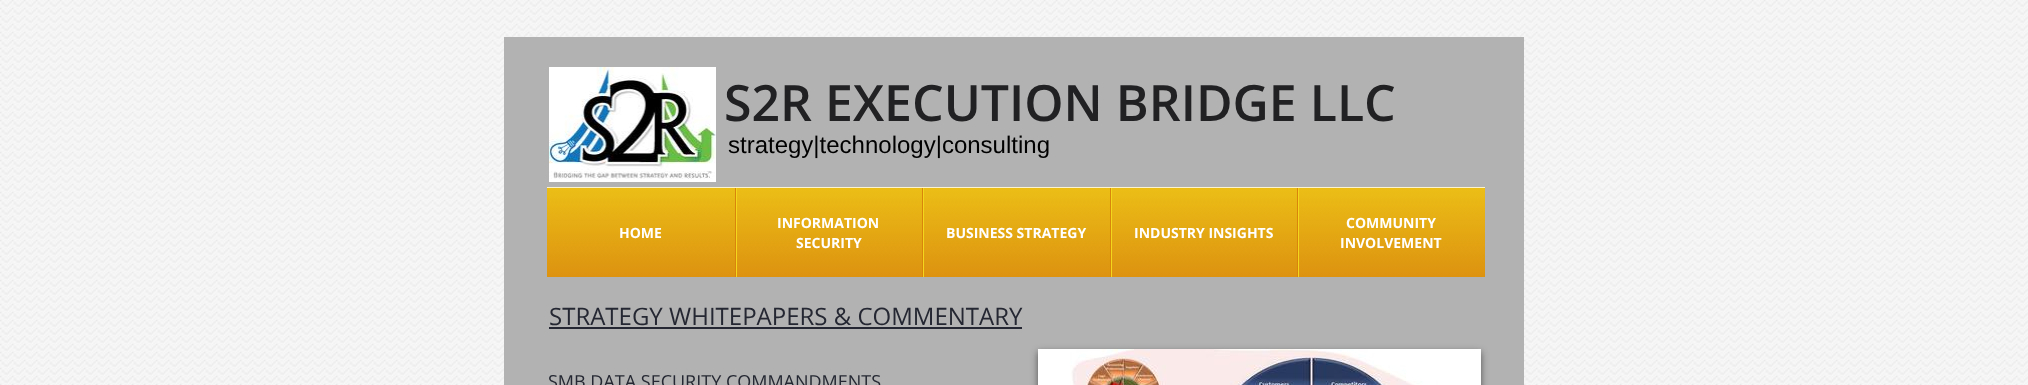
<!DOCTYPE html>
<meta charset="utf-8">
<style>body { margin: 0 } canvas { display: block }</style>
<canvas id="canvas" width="2028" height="385"></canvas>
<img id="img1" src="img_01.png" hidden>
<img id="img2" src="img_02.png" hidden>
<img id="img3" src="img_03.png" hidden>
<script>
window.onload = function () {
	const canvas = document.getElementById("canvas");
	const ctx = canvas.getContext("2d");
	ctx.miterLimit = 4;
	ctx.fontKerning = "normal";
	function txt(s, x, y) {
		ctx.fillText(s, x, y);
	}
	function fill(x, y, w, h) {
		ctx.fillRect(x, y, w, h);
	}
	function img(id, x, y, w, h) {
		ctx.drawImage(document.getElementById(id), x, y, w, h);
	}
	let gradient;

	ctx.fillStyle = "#FFFFFF";
	fill(0, 0, 2028, 385);
	img("img1", 0, 0, 2028, 385);
	ctx.fillStyle = "#B2B2B2";
	fill(504, 37, 1020, 348);
	img("img2", 549, 67, 167, 115);
	gradient = ctx.createLinearGradient(1016, 188, 1016, 277);
	gradient.addColorStop(0, "#EBBE16");
	gradient.addColorStop(1, "#DD9210");
	ctx.fillStyle = gradient;
	fill(547, 188, 938, 89);
	ctx.fillStyle = "#FBF2D0";
	fill(547, 187, 938, 1);
	ctx.fillStyle = "#F3D71D";
	fill(736, 188, 1, 89);
	ctx.fillStyle = "#D9850C";
	fill(735, 188, 1, 89);
	ctx.fillStyle = "#F3D71D";
	fill(923, 188, 1, 89);
	ctx.fillStyle = "#D9850C";
	fill(922, 188, 1, 89);
	ctx.fillStyle = "#F3D71D";
	fill(1111, 188, 1, 89);
	ctx.fillStyle = "#D9850C";
	fill(1110, 188, 1, 89);
	ctx.fillStyle = "#F3D71D";
	fill(1298, 188, 1, 89);
	ctx.fillStyle = "#D9850C";
	fill(1297, 188, 1, 89);
	ctx.fillStyle = "#252832";
	fill(549, 327, 473, 2);
	ctx.fillStyle = "rgba(50, 50, 50, 0.75)";
	ctx.filter = "blur(3.5px)";
	ctx.beginPath();
	ctx.rect(1038, 352, 443, 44);
	ctx.fill();
	ctx.filter = "none";
	img("img3", 1038, 349, 443, 36);
	ctx.font = "600 50px Open Sans";
	ctx.fillStyle = "#212124";
	txt("S2R EXECUTION BRIDGE LLC", 724, 121);
	ctx.font = "24px Liberation Sans";
	ctx.fillStyle = "#000000";
	txt("strategy|technology|consulting", 728, 153);
	ctx.font = "bold 14px Open Sans";
	ctx.fillStyle = "#FFFFFF";
	txt("HOME", 619, 238);
	txt("INFORMATION", 777, 228);
	txt("SECURITY", 796, 248);
	txt("BUSINESS STRATEGY", 946, 238);
	txt("INDUSTRY INSIGHTS", 1134, 238);
	txt("COMMUNITY", 1346, 228);
	txt("INVOLVEMENT", 1340, 248);
	ctx.font = "24px Open Sans";
	ctx.fillStyle = "#252832";
	txt("STRATEGY WHITEPAPERS & COMMENTARY", 549, 325);
	ctx.font = "18px Open Sans";
	txt("SMB DATA SECURITY COMMANDMENTS", 548, 388);
};
</script>
